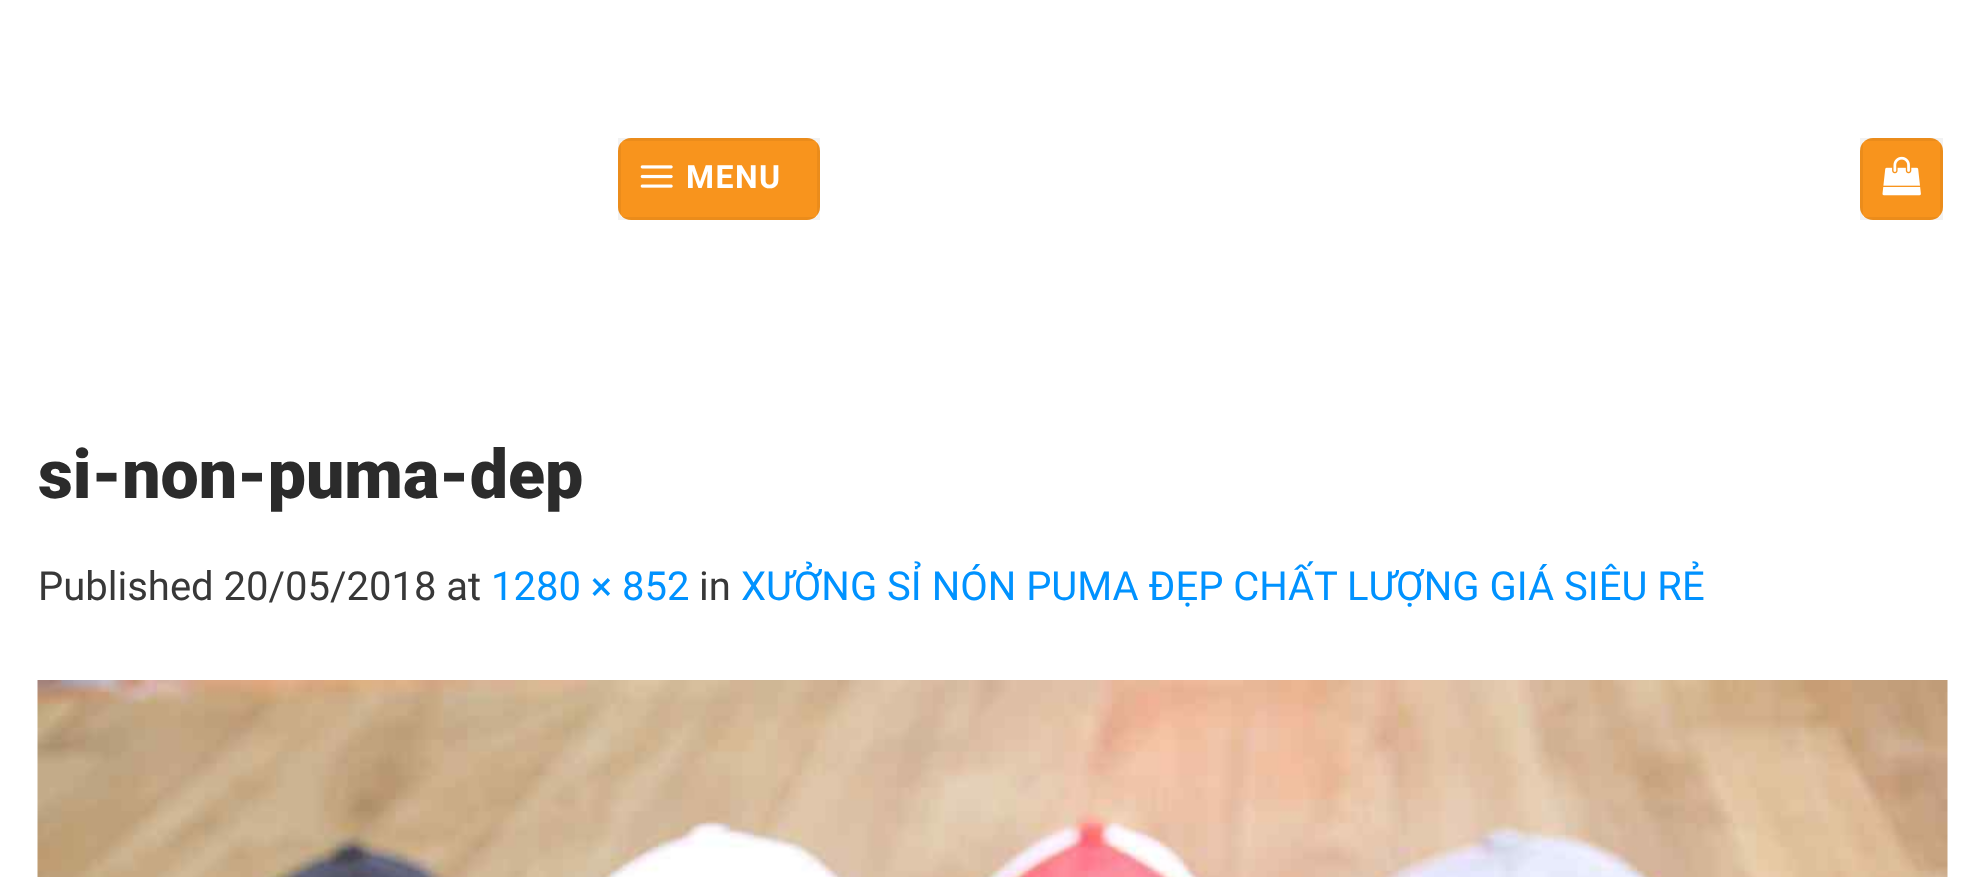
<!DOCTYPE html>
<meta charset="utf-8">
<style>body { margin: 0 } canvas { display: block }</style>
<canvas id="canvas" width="1985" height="877"></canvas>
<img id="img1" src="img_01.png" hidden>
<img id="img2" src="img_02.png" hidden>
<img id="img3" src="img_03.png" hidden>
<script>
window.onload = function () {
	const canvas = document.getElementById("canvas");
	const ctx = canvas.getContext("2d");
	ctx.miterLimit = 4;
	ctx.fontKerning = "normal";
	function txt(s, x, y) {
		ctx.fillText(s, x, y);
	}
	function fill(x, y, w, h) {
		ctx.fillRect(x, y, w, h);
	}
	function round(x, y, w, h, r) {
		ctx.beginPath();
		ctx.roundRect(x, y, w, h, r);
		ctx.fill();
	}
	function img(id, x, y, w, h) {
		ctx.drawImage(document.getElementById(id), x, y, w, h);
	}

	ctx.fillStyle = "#FFFFFF";
	fill(0, 0, 1985, 877);
	ctx.fillStyle = "#F8941D";
	round(618, 138, 202, 82, 13);
	ctx.strokeStyle = "rgba(0, 0, 0, 0.05)";
	ctx.lineWidth = 3;
	ctx.strokeRect(619.5, 139.5, 199, 79);
	img("img1", 640, 165, 33, 23);
	round(1860, 138, 83, 82, 13);
	ctx.strokeRect(1861.5, 139.5, 80, 79);
	img("img2", 1882, 156, 39, 40);
	img("img3", 37, 680, 1911, 197);
	ctx.letterSpacing = "1.5px";
	ctx.font = "bold 32px Roboto";
	ctx.fillStyle = "#FFFFFF";
	txt("MENU", 686, 188);
	ctx.letterSpacing = "0px";
	ctx.font = "900 68px Roboto";
	ctx.fillStyle = "#2B2B2B";
	txt("si-non-puma-dep", 38, 498);
	ctx.font = "40px Roboto";
	ctx.fillStyle = "#383838";
	txt("Published 20/05/2018 at", 38, 600);
	ctx.fillStyle = "#0092FF";
	txt("1280 × 852", 491, 600);
	ctx.fillStyle = "#383838";
	txt("in", 699, 600);
	ctx.fillStyle = "#0092FF";
	txt("XƯỞNG SỈ NÓN PUMA ĐẸP CHẤT LƯỢNG GIÁ SIÊU RẺ", 741, 600);
};
</script>
